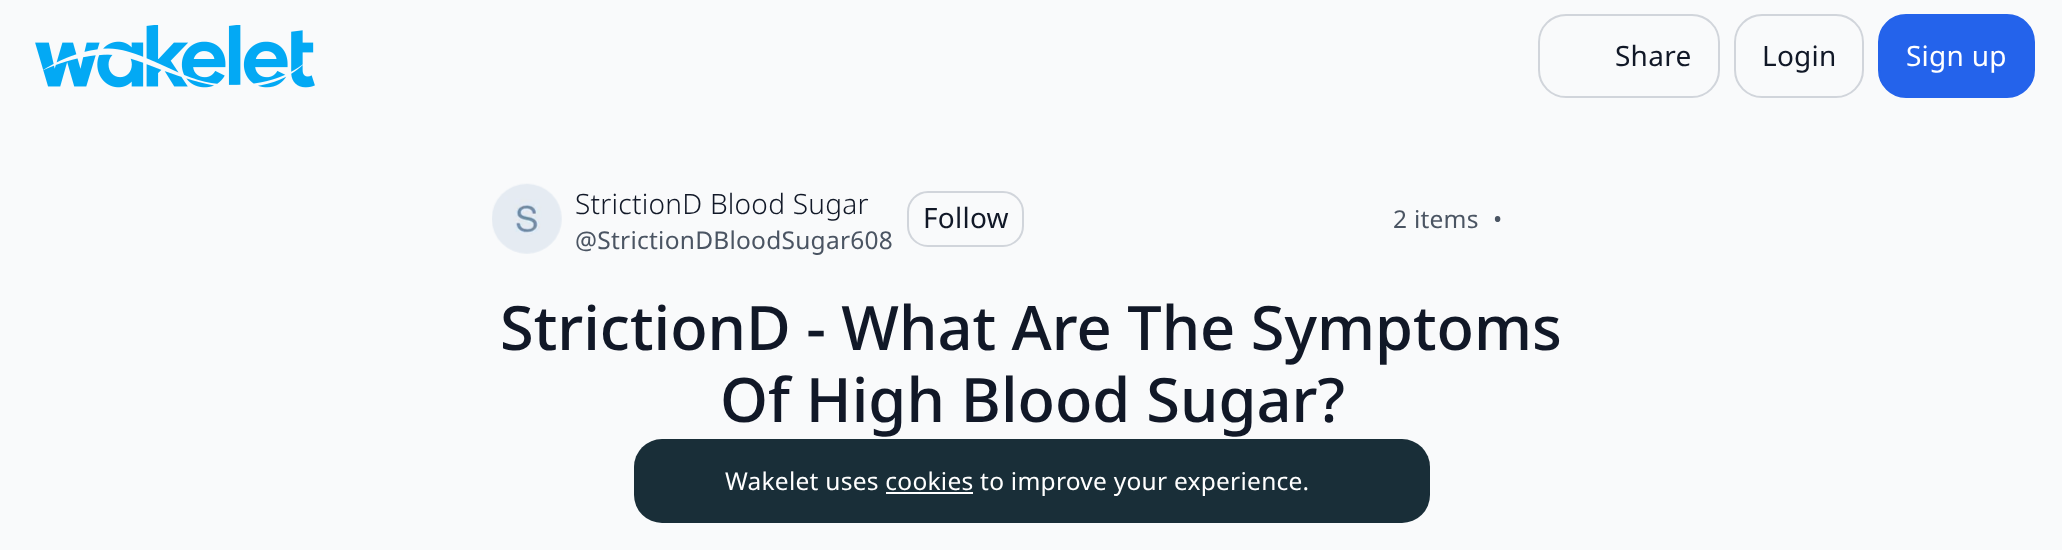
<!DOCTYPE html>
<meta charset="utf-8">
<style>body { margin: 0 } canvas { display: block }</style>
<canvas id="canvas" width="2062" height="550"></canvas>
<img id="img1" src="img_01.png" hidden>
<img id="img2" src="img_02.png" hidden>
<script>
window.onload = function () {
	const canvas = document.getElementById("canvas");
	const ctx = canvas.getContext("2d");
	ctx.miterLimit = 4;
	ctx.fontKerning = "normal";
	function txt(s, x, y) {
		ctx.fillText(s, x, y);
	}
	function fill(x, y, w, h) {
		ctx.fillRect(x, y, w, h);
	}
	function round(x, y, w, h, r) {
		ctx.beginPath();
		ctx.roundRect(x, y, w, h, r);
		ctx.fill();
	}
	function img(id, x, y, w, h) {
		ctx.drawImage(document.getElementById(id), x, y, w, h);
	}

	ctx.fillStyle = "#F9FAFB";
	fill(0, 0, 2062, 550);
	img("img1", 35, 25, 280, 63);
	ctx.beginPath();
	ctx.roundRect(1539, 15, 180, 82, 27);
	ctx.strokeStyle = "#D1D5DB";
	ctx.lineWidth = 2;
	ctx.stroke();
	ctx.beginPath();
	ctx.roundRect(1735, 15, 128, 82, 27);
	ctx.stroke();
	ctx.fillStyle = "#2463EB";
	ctx.beginPath();
	ctx.roundRect(1879, 15, 155, 82, 27);
	ctx.fill();
	ctx.strokeStyle = "#2463EB";
	ctx.stroke();
	img("img2", 492, 183, 70, 71);
	ctx.beginPath();
	ctx.roundRect(908, 192, 115, 54, 20);
	ctx.strokeStyle = "#D1D5DB";
	ctx.stroke();
	ctx.fillStyle = "#192E38";
	round(634, 439, 796, 84, 28);
	ctx.fillStyle = "#FFFFFF";
	fill(886, 492, 87, 2);
	ctx.letterSpacing = "0.25px";
	ctx.font = "28px Noto Sans";
	ctx.fillStyle = "#111827";
	txt("Share", 1615, 66);
	txt("Login", 1762, 66);
	ctx.fillStyle = "#FFFFFF";
	txt("Sign up", 1906, 66);
	ctx.font = "300 28px Noto Sans";
	ctx.fillStyle = "#111827";
	txt("StrictionD Blood Sugar", 575, 214);
	ctx.font = "24.5px Noto Sans";
	ctx.fillStyle = "#4B5563";
	txt("@StrictionDBloodSugar608", 575, 249);
	ctx.font = "28px Noto Sans";
	ctx.fillStyle = "#111827";
	txt("Follow", 923, 228);
	ctx.font = "24.5px Noto Sans";
	ctx.fillStyle = "#4B5563";
	txt("2 items", 1393, 228);
	txt("•", 1493, 228);
	ctx.letterSpacing = "0px";
	ctx.wordSpacing = "-0.5px";
	ctx.font = "500 61.25px Noto Sans";
	ctx.fillStyle = "#111827";
	txt("StrictionD - What Are The Symptoms", 500, 350);
	ctx.wordSpacing = "0px";
	txt("Of High Blood Sugar?", 720, 422);
	ctx.letterSpacing = "0.25px";
	ctx.font = "24.5px Noto Sans";
	ctx.fillStyle = "#FFFFFF";
	txt("Wakelet uses cookies to improve your experience.", 725, 490);
};
</script>
